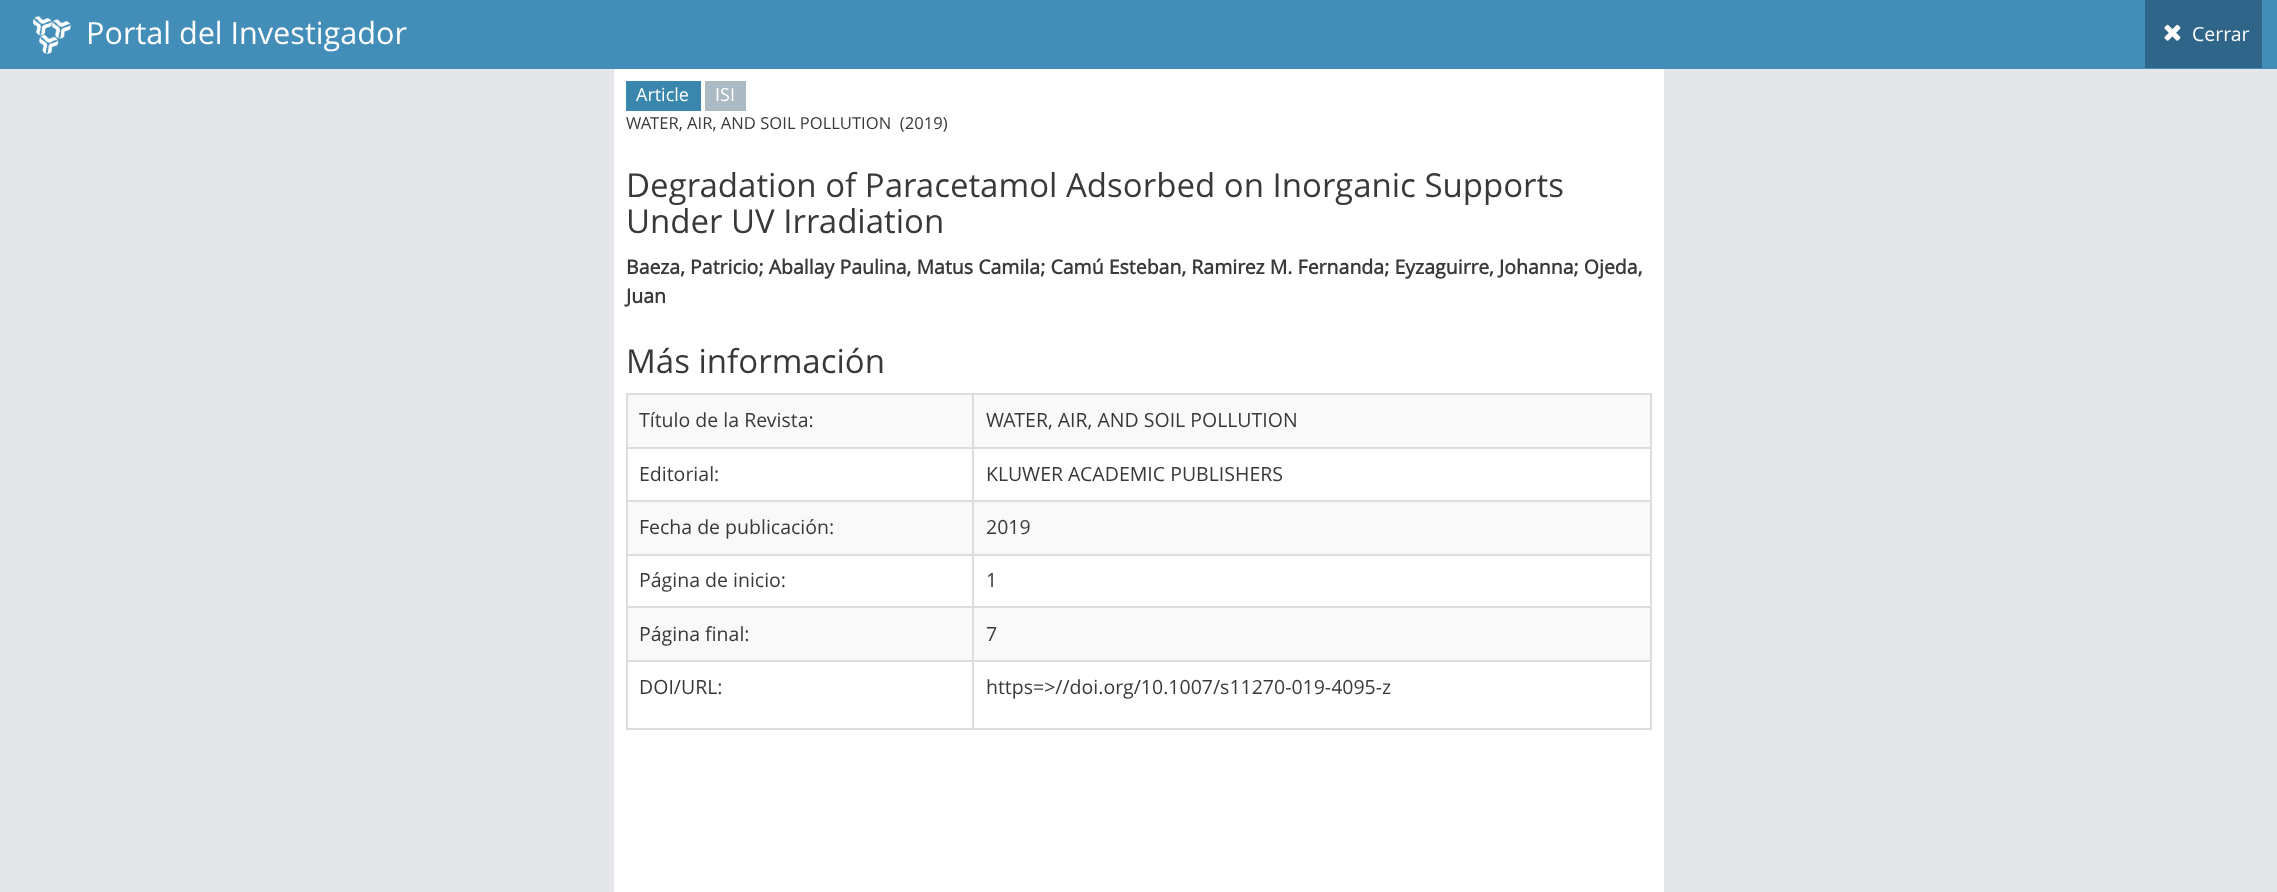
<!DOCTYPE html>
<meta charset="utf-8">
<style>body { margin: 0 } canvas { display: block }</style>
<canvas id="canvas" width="2277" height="892"></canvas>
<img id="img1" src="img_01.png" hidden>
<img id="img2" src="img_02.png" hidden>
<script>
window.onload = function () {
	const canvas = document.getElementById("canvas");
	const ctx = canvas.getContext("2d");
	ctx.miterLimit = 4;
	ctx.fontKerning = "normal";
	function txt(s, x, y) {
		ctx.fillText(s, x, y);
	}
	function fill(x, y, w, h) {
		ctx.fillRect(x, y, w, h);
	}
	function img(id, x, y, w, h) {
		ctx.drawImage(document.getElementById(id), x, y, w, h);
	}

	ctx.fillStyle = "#E4E6E9";
	fill(0, 0, 2277, 892);
	ctx.fillStyle = "#438EB9";
	fill(0, 0, 2277, 69);
	img("img1", 33, 16, 38, 38);
	ctx.fillStyle = "#2E6589";
	fill(2145, 0, 117, 68);
	img("img2", 2164, 24, 17, 17);
	ctx.fillStyle = "#FFFFFF";
	fill(614, 69, 1050, 823);
	ctx.fillStyle = "#3A87AD";
	fill(626, 81, 75, 30);
	ctx.fillStyle = "#ABBAC3";
	fill(705, 81, 41, 30);
	ctx.fillStyle = "#DDDDDD";
	fill(626, 393, 1026, 2);
	fill(1650, 393, 2, 336);
	fill(626, 728, 1026, 2);
	fill(626, 393, 2, 336);
	ctx.fillStyle = "#F9F9F9";
	fill(628, 395, 1022, 52);
	ctx.fillStyle = "#DDDDDD";
	fill(972, 447, 680, 2);
	fill(972, 500, 680, 2);
	ctx.fillStyle = "#F9F9F9";
	fill(628, 502, 1022, 52);
	ctx.fillStyle = "#DDDDDD";
	fill(972, 554, 680, 2);
	fill(972, 606, 680, 2);
	ctx.fillStyle = "#F9F9F9";
	fill(628, 608, 1022, 52);
	ctx.fillStyle = "#DDDDDD";
	fill(972, 660, 680, 2);
	fill(972, 660, 2, 69);
	fill(626, 660, 348, 2);
	fill(972, 606, 2, 56);
	fill(626, 606, 348, 2);
	fill(972, 554, 2, 54);
	fill(626, 554, 348, 2);
	fill(972, 500, 2, 55);
	fill(626, 500, 348, 2);
	fill(972, 447, 2, 54);
	fill(626, 447, 348, 2);
	fill(972, 393, 2, 56);
	ctx.font = "30.6px Open Sans";
	ctx.fillStyle = "#FFFFFF";
	txt("Portal del Investigador", 86, 44);
	ctx.font = "19.5px Open Sans";
	txt("Cerrar", 2192, 41);
	ctx.font = "18px Open Sans";
	txt("Article", 636, 101);
	txt("ISI", 715, 101);
	ctx.font = "16.6px Open Sans";
	ctx.fillStyle = "#393939";
	txt("WATER, AIR, AND SOIL POLLUTION  (2019)", 626, 129);
	ctx.font = "33px Open Sans";
	txt("Degradation of Paracetamol Adsorbed on Inorganic Supports", 626, 197);
	txt("Under UV Irradiation", 626, 233);
	ctx.font = "bold 19.5px Open Sans";
	txt("Baeza, Patricio; Aballay Paulina, Matus Camila; Camú Esteban, Ramirez M. Fernanda; Eyzaguirre, Johanna; Ojeda,", 626, 274);
	txt("Juan", 626, 303);
	ctx.font = "33px Open Sans";
	txt("Más información", 626, 373);
	ctx.font = "19.5px Open Sans";
	txt("Título de la Revista:", 639, 427);
	txt("WATER, AIR, AND SOIL POLLUTION", 986, 427);
	txt("Editorial:", 639, 481);
	txt("KLUWER ACADEMIC PUBLISHERS", 986, 481);
	txt("Fecha de publicación:", 639, 534);
	txt("2019", 986, 534);
	txt("Página de inicio:", 639, 587);
	txt("1", 986, 587);
	txt("Página final:", 639, 641);
	txt("7", 986, 641);
	txt("DOI/URL:", 639, 694);
	txt("https=>//doi.org/10.1007/s11270-019-4095-z", 986, 694);
};
</script>
